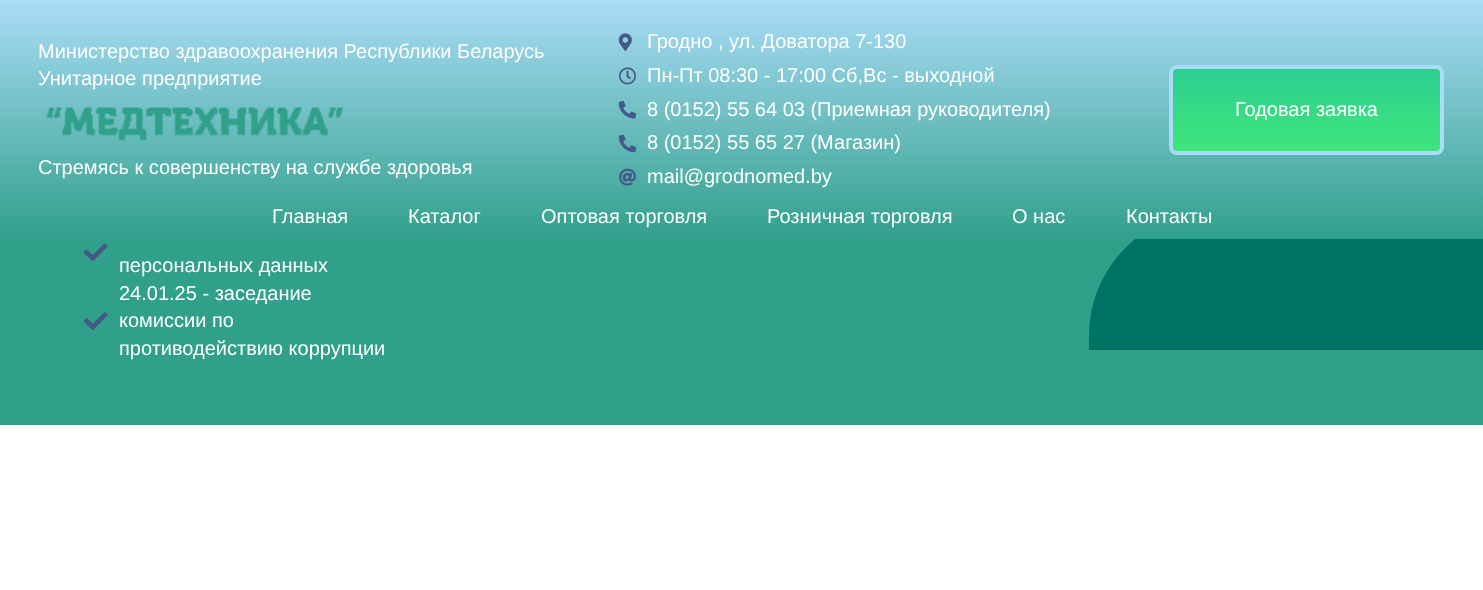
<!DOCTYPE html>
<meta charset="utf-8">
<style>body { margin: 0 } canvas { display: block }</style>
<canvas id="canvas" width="1483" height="590"></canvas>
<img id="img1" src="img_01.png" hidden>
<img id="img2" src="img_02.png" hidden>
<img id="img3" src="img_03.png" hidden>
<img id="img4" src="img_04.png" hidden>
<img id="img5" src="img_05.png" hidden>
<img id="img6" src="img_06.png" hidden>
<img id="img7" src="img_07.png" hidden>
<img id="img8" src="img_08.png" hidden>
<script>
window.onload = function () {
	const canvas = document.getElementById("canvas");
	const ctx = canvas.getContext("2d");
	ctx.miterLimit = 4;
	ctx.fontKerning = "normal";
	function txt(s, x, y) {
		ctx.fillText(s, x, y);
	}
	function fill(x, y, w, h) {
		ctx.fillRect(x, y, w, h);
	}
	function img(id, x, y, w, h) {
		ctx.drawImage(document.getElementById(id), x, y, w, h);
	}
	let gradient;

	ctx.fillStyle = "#FFFFFF";
	fill(0, 0, 1483, 590);
	ctx.fillStyle = "#31A08B";
	fill(0, 239, 1483, 186);
	ctx.fillStyle = "#007263";
	ctx.beginPath();
	ctx.moveTo(1214, 211);
	ctx.lineTo(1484, 211);
	ctx.lineTo(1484, 350);
	ctx.lineTo(1089, 350);
	ctx.lineTo(1089, 336);
	ctx.bezierCurveTo(1089, 267, 1145, 211, 1214, 211);
	ctx.closePath();
	ctx.fill();
	gradient = ctx.createLinearGradient(742, 0, 742, 239);
	gradient.addColorStop(0, "#AADCF7");
	gradient.addColorStop(1, "#31A08B");
	ctx.fillStyle = gradient;
	fill(0, 0, 1483, 239);
	img("img1", 45, 107, 299, 34);
	img("img2", 618, 33, 14, 18);
	img("img3", 619, 67, 17, 18);
	img("img4", 618, 101, 19, 18);
	img("img5", 618, 134, 19, 19);
	img("img6", 619, 168, 17, 18);
	ctx.save();
	ctx.beginPath();
	ctx.roundRect(1169, 65, 275, 90, 8);
	ctx.clip();
	gradient = ctx.createLinearGradient(1306, 69, 1306, 151);
	gradient.addColorStop(0, "#2CCF91");
	gradient.addColorStop(1, "#3FE57B");
	ctx.fillStyle = gradient;
	fill(1169, 69, 275, 82);
	ctx.restore();
	ctx.beginPath();
	ctx.roundRect(1171, 67, 271, 86, 6);
	ctx.strokeStyle = "#AADCF7";
	ctx.lineWidth = 4;
	ctx.stroke();
	img("img7", 83, 243, 25, 19);
	img("img8", 83, 312, 25, 18);
	ctx.font = "20px Liberation Sans";
	ctx.fillStyle = "#FFFFFF";
	txt("Министерство здравоохранения Республики Беларусь", 38, 58);
	txt("Унитарное предприятие", 38, 85);
	txt("Стремясь к совершенству на службе здоровья", 38, 174);
	txt("Гродно , ул. Доватора 7-130", 647, 48);
	txt("Пн-Пт 08:30 - 17:00 Cб,Вс - выходной", 647, 82);
	txt("8 (0152) 55 64 03 (Приемная руководителя)", 647, 116);
	txt("8 (0152) 55 65 27 (Магазин)", 647, 149);
	txt("mail@grodnomed.by", 647, 183);
	txt("Годовая заявка", 1235, 116);
	txt("Главная", 272, 223);
	txt("Каталог", 408, 223);
	txt("Оптовая торговля", 541, 223);
	txt("Розничная торговля", 767, 223);
	txt("О нас", 1012, 223);
	txt("Контакты", 1126, 223);
	txt("персональных данных", 119, 272);
	txt("24.01.25 - заседание", 119, 300);
	txt("комиссии по", 119, 327);
	txt("противодействию коррупции", 119, 355);
};
</script>
